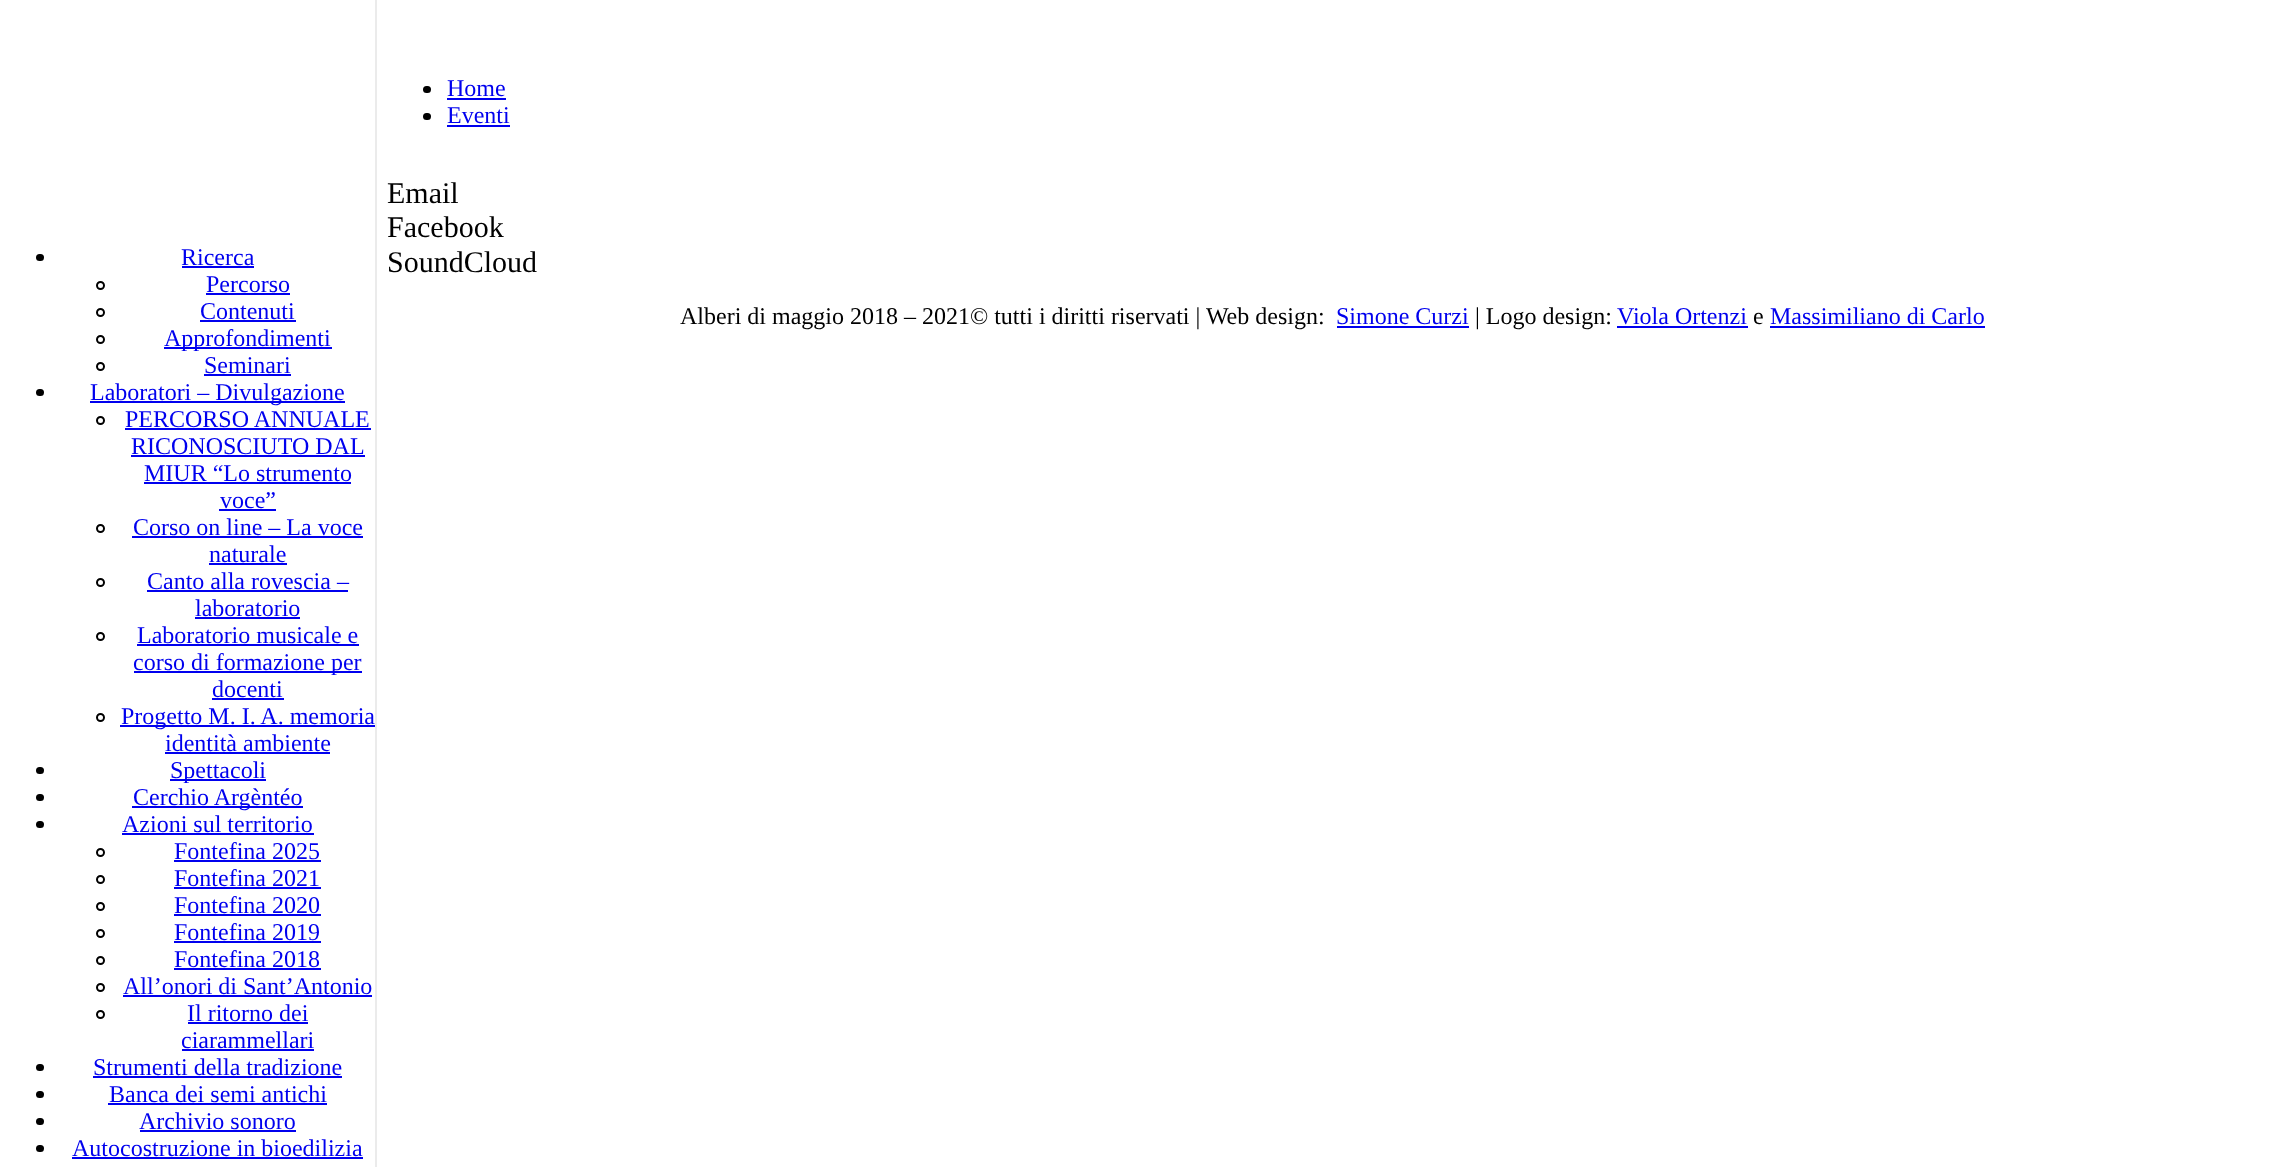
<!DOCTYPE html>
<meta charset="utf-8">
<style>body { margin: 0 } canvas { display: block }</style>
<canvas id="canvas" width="2289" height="1167"></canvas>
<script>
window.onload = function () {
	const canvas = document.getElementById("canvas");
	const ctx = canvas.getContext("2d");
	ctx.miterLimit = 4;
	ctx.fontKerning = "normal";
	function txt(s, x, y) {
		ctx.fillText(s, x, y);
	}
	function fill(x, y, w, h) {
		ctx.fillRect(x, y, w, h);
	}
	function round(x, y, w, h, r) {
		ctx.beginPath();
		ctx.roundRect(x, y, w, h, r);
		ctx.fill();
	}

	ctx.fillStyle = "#FFFFFF";
	fill(0, 0, 2289, 1167);
	ctx.fillStyle = "#000000";
	round(423, 86, 8, 7, 3.5);
	ctx.fillStyle = "#0000EE";
	fill(447, 98, 59, 2);
	ctx.fillStyle = "#000000";
	round(423, 113, 8, 7, 3.5);
	ctx.fillStyle = "#0000EE";
	fill(447, 125, 63, 2);
	fill(1337, 326, 132, 2);
	fill(1617, 326, 131, 2);
	fill(1770, 326, 215, 2);
	ctx.fillStyle = "#EBEBEB";
	fill(375, 0, 2, 1167);
	ctx.fillStyle = "#000000";
	round(36, 254, 8, 7, 3.5);
	ctx.fillStyle = "#0000EE";
	fill(182, 266, 72, 2);
	ctx.beginPath();
	ctx.arc(100.5, 285.5, 3.5, 0, Math.PI * 2);
	ctx.strokeStyle = "#000000";
	ctx.lineWidth = 2;
	ctx.stroke();
	fill(206, 293, 84, 2);
	ctx.beginPath();
	ctx.arc(100.5, 312.5, 3.5, 0, Math.PI * 2);
	ctx.stroke();
	fill(200, 320, 96, 2);
	ctx.beginPath();
	ctx.arc(100.5, 339.5, 3.5, 0, Math.PI * 2);
	ctx.stroke();
	fill(164, 347, 168, 2);
	ctx.beginPath();
	ctx.arc(100.5, 366.5, 3.5, 0, Math.PI * 2);
	ctx.stroke();
	fill(204, 374, 87, 2);
	ctx.fillStyle = "#000000";
	round(36, 389, 8, 7, 3.5);
	ctx.fillStyle = "#0000EE";
	fill(90, 401, 255, 2);
	ctx.beginPath();
	ctx.arc(100.5, 420.5, 3.5, 0, Math.PI * 2);
	ctx.stroke();
	fill(125, 428, 246, 2);
	fill(131, 455, 234, 2);
	fill(144, 482, 207, 2);
	fill(219, 509, 57, 2);
	ctx.beginPath();
	ctx.arc(100.5, 528.5, 3.5, 0, Math.PI * 2);
	ctx.stroke();
	fill(132, 536, 231, 2);
	fill(209, 563, 78, 2);
	ctx.beginPath();
	ctx.arc(100.5, 582.5, 3.5, 0, Math.PI * 2);
	ctx.stroke();
	fill(147, 590, 201, 2);
	fill(195, 617, 105, 2);
	ctx.beginPath();
	ctx.arc(100.5, 636.5, 3.5, 0, Math.PI * 2);
	ctx.stroke();
	fill(137, 644, 222, 2);
	fill(134, 671, 228, 2);
	fill(212, 698, 72, 2);
	ctx.beginPath();
	ctx.arc(100.5, 717.5, 3.5, 0, Math.PI * 2);
	ctx.stroke();
	fill(120, 725, 255, 2);
	fill(165, 752, 165, 2);
	ctx.fillStyle = "#000000";
	round(36, 767, 8, 7, 3.5);
	ctx.fillStyle = "#0000EE";
	fill(170, 779, 96, 2);
	ctx.fillStyle = "#000000";
	round(36, 794, 8, 7, 3.5);
	ctx.fillStyle = "#0000EE";
	fill(132, 806, 171, 2);
	ctx.fillStyle = "#000000";
	round(36, 821, 8, 7, 3.5);
	ctx.fillStyle = "#0000EE";
	fill(122, 833, 192, 2);
	ctx.beginPath();
	ctx.arc(100.5, 852.5, 3.5, 0, Math.PI * 2);
	ctx.stroke();
	fill(174, 860, 147, 2);
	ctx.beginPath();
	ctx.arc(100.5, 879.5, 3.5, 0, Math.PI * 2);
	ctx.stroke();
	fill(174, 887, 147, 2);
	ctx.beginPath();
	ctx.arc(100.5, 906.5, 3.5, 0, Math.PI * 2);
	ctx.stroke();
	fill(174, 914, 147, 2);
	ctx.beginPath();
	ctx.arc(100.5, 933.5, 3.5, 0, Math.PI * 2);
	ctx.stroke();
	fill(174, 941, 147, 2);
	ctx.beginPath();
	ctx.arc(100.5, 960.5, 3.5, 0, Math.PI * 2);
	ctx.stroke();
	fill(174, 968, 147, 2);
	ctx.beginPath();
	ctx.arc(100.5, 987.5, 3.5, 0, Math.PI * 2);
	ctx.stroke();
	fill(123, 995, 249, 2);
	ctx.beginPath();
	ctx.arc(100.5, 1014.5, 3.5, 0, Math.PI * 2);
	ctx.stroke();
	fill(188, 1022, 120, 2);
	fill(182, 1049, 132, 2);
	ctx.fillStyle = "#000000";
	round(36, 1064, 8, 7, 3.5);
	ctx.fillStyle = "#0000EE";
	fill(93, 1076, 249, 2);
	ctx.fillStyle = "#000000";
	round(36, 1091, 8, 7, 3.5);
	ctx.fillStyle = "#0000EE";
	fill(108, 1103, 219, 2);
	ctx.fillStyle = "#000000";
	round(36, 1118, 8, 7, 3.5);
	ctx.fillStyle = "#0000EE";
	fill(140, 1130, 156, 2);
	ctx.fillStyle = "#000000";
	round(36, 1145, 8, 7, 3.5);
	ctx.fillStyle = "#0000EE";
	fill(72, 1157, 291, 2);
	ctx.font = "24px Liberation Serif";
	txt("Home", 447, 96);
	txt("Eventi", 447, 123);
	ctx.font = "30px Liberation Serif";
	ctx.fillStyle = "#000000";
	txt("Email", 387, 203);
	txt("Facebook", 387, 237);
	txt("SoundCloud", 387, 272);
	ctx.font = "24px Liberation Serif";
	txt("Alberi di maggio 2018 – 2021© tutti i diritti riservati | Web design:", 680, 324);
	ctx.fillStyle = "#0000EE";
	txt("Simone Curzi", 1336, 324);
	ctx.fillStyle = "#000000";
	txt("| Logo design:", 1475, 324);
	ctx.fillStyle = "#0000EE";
	txt("Viola Ortenzi", 1617, 324);
	ctx.fillStyle = "#000000";
	txt("e", 1753, 324);
	ctx.fillStyle = "#0000EE";
	txt("Massimiliano di Carlo", 1770, 324);
	txt("Ricerca", 181, 265);
	txt("Percorso", 206, 292);
	txt("Contenuti", 200, 319);
	txt("Approfondimenti", 164, 346);
	txt("Seminari", 204, 373);
	txt("Laboratori – Divulgazione", 90, 400);
	txt("PERCORSO ANNUALE", 125, 427);
	txt("RICONOSCIUTO DAL", 131, 454);
	txt("MIUR “Lo strumento", 144, 481);
	txt("voce”", 220, 508);
	txt("Corso on line – La voce", 133, 535);
	txt("naturale", 209, 562);
	txt("Canto alla rovescia –", 147, 589);
	txt("laboratorio", 195, 616);
	txt("Laboratorio musicale e", 137, 643);
	txt("corso di formazione per", 133, 670);
	txt("docenti", 212, 697);
	txt("Progetto M. I. A. memoria", 121, 724);
	txt("identità ambiente", 165, 751);
	txt("Spettacoli", 170, 778);
	txt("Cerchio Argèntéo", 133, 805);
	txt("Azioni sul territorio", 122, 832);
	txt("Fontefina 2025", 174, 859);
	txt("Fontefina 2021", 174, 886);
	txt("Fontefina 2020", 174, 913);
	txt("Fontefina 2019", 174, 940);
	txt("Fontefina 2018", 174, 967);
	txt("All’onori di Sant’Antonio", 123, 994);
	txt("Il ritorno dei", 187, 1021);
	txt("ciarammellari", 181, 1048);
	txt("Strumenti della tradizione", 93, 1075);
	txt("Banca dei semi antichi", 109, 1102);
	txt("Archivio sonoro", 139, 1129);
	txt("Autocostruzione in bioedilizia", 72, 1156);
};
</script>
